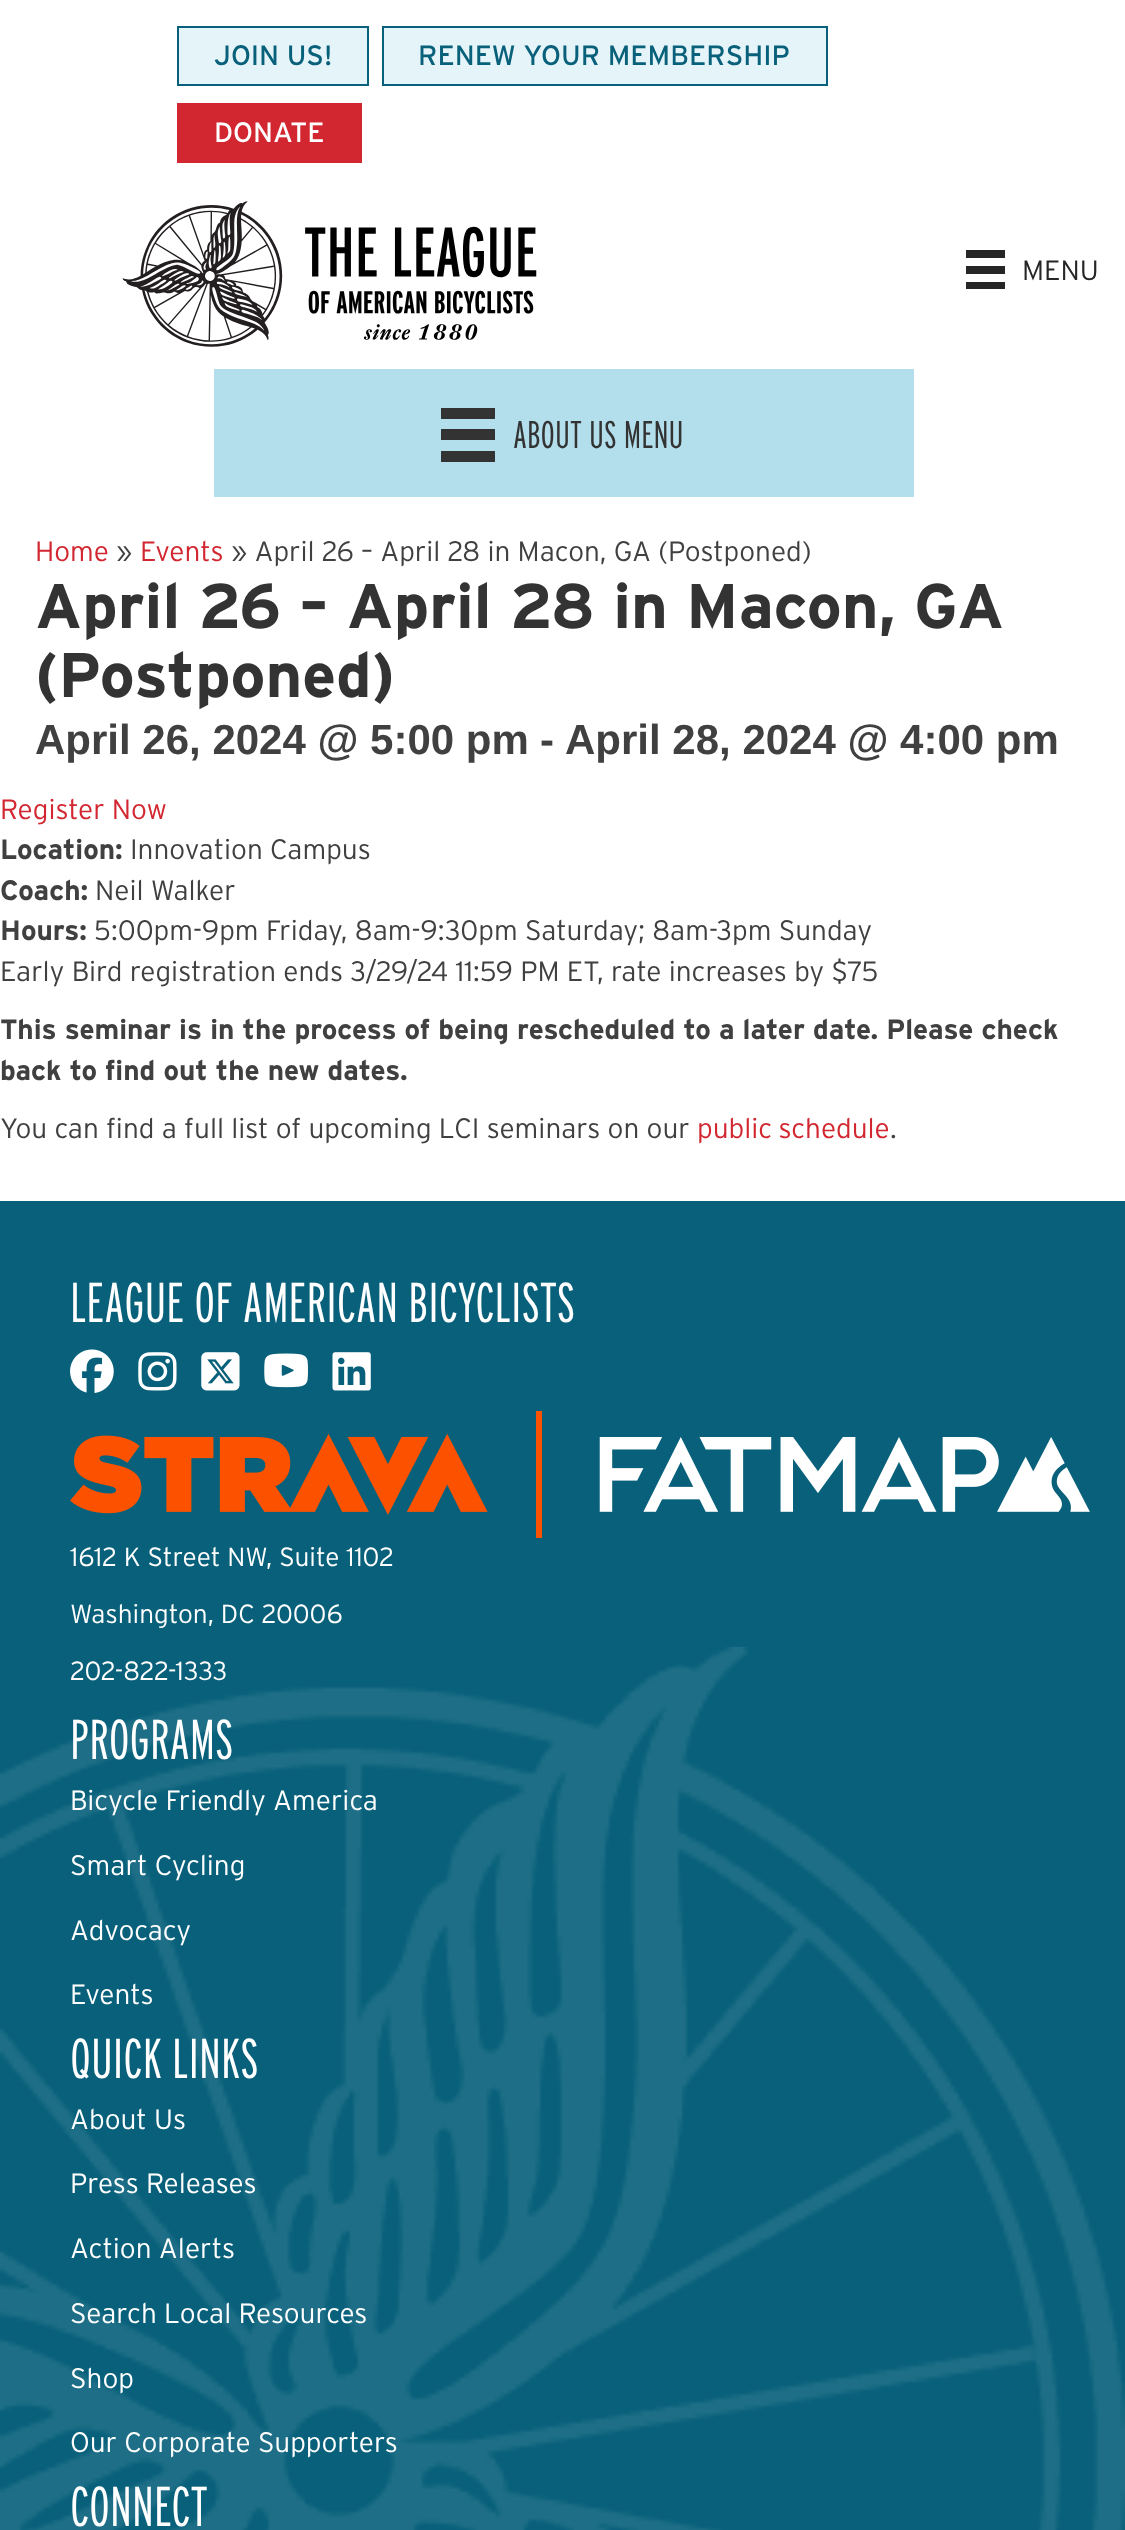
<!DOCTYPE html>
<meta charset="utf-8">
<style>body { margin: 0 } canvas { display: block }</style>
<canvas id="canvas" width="1125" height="2530"></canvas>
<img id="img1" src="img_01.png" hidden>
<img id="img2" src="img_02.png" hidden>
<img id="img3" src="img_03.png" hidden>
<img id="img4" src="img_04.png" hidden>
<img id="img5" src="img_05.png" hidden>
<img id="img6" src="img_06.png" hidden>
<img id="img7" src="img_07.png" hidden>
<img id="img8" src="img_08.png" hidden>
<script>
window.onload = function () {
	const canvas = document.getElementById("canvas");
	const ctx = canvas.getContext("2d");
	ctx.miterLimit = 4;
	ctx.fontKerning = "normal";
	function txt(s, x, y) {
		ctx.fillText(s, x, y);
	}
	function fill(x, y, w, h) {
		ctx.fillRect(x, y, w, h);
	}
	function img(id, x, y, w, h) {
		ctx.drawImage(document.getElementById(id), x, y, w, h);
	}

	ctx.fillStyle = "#FFFFFF";
	fill(0, 0, 1125, 2530);
	ctx.fillStyle = "#E5F4F8";
	ctx.beginPath();
	ctx.rect(178, 27, 190, 58);
	ctx.fill();
	ctx.strokeStyle = "#08607A";
	ctx.lineWidth = 2;
	ctx.stroke();
	ctx.beginPath();
	ctx.rect(383, 27, 444, 58);
	ctx.fill();
	ctx.stroke();
	ctx.fillStyle = "#D22630";
	fill(177, 103, 185, 60);
	img("img1", 122, 201, 415, 146);
	ctx.fillStyle = "#262626";
	fill(966, 250, 39, 8);
	fill(966, 266, 39, 8);
	fill(966, 282, 39, 7);
	ctx.fillStyle = "#B3DEEB";
	fill(214, 369, 700, 128);
	ctx.fillStyle = "#333333";
	fill(441, 408, 54, 11);
	fill(441, 429, 54, 11);
	fill(441, 451, 54, 11);
	ctx.fillStyle = "#08607A";
	fill(0, 1201, 1125, 1329);
	img("img2", 0, 1646, 1125, 884);
	img("img3", 70, 1349, 44, 44);
	img("img4", 138, 1352, 39, 39);
	img("img5", 201, 1352, 39, 39);
	img("img6", 264, 1353, 44, 35);
	img("img7", 332, 1352, 39, 39);
	img("img8", 70, 1411, 1020, 127);
	ctx.font = "28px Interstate";
	txt("JOIN US!", 214, 65);
	txt("RENEW YOUR MEMBERSHIP", 418, 65);
	ctx.fillStyle = "#FFFFFF";
	txt("DONATE", 214, 142);
	ctx.font = "300 28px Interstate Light";
	ctx.fillStyle = "#262626";
	txt("MENU", 1022, 280);
	ctx.font = "300 38.5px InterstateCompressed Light";
	ctx.fillStyle = "#333333";
	txt("ABOUT US MENU", 513, 448);
	ctx.font = "300 28px Interstate Light";
	ctx.fillStyle = "#D22630";
	txt("Home", 35, 561);
	ctx.fillStyle = "#404040";
	txt("»", 116, 561);
	ctx.fillStyle = "#D22630";
	txt("Events", 140, 561);
	ctx.fillStyle = "#404040";
	txt("» April 26 – April 28 in Macon, GA (Postponed)", 231, 561);
	ctx.font = "bold 63px Interstate";
	ctx.fillStyle = "#333333";
	txt("April 26 – April 28 in Macon, GA", 35, 628);
	txt("(Postponed)", 35, 697);
	ctx.font = "bold 42px Liberation Sans";
	ctx.fillStyle = "#404040";
	txt("April 26, 2024 @ 5:00 pm", 35, 754);
	txt("-", 540, 754);
	txt("April 28, 2024 @ 4:00 pm", 565, 754);
	ctx.font = "300 28px Interstate Light";
	ctx.fillStyle = "#D22630";
	txt("Register Now", 0, 819);
	ctx.font = "bold 28px Interstate";
	ctx.fillStyle = "#404040";
	txt("Location:", 0, 859);
	ctx.font = "300 28px Interstate Light";
	txt("Innovation Campus", 130, 859);
	ctx.font = "bold 28px Interstate";
	txt("Coach:", 0, 900);
	ctx.font = "300 28px Interstate Light";
	txt("Neil Walker", 95, 900);
	ctx.font = "bold 28px Interstate";
	txt("Hours:", 0, 940);
	ctx.font = "300 28px Interstate Light";
	txt("5:00pm-9pm Friday, 8am-9:30pm Saturday; 8am-3pm Sunday", 94, 940);
	txt("Early Bird registration ends 3/29/24 11:59 PM ET, rate increases by $75", 0, 981);
	ctx.font = "bold 28px Interstate";
	txt("This seminar is in the process of being rescheduled to a later date. Please check", 0, 1039);
	txt("back to find out the new dates.", 0, 1080);
	ctx.font = "300 28px Interstate Light";
	txt("You can find a full list of upcoming LCI seminars on our", 0, 1138);
	ctx.wordSpacing = "-1px";
	ctx.fillStyle = "#D22630";
	txt("public schedule", 697, 1138);
	ctx.wordSpacing = "0px";
	ctx.fillStyle = "#404040";
	txt(".", 890, 1138);
	ctx.font = "300 56px InterstateCompressed Light";
	ctx.fillStyle = "#FFFFFF";
	txt("LEAGUE OF AMERICAN BICYCLISTS", 70, 1322);
	ctx.font = "300 26.25px Interstate Light";
	txt("1612 K Street NW, Suite 1102", 70, 1566);
	txt("Washington, DC 20006", 70, 1623);
	txt("202-822-1333", 70, 1680);
	ctx.font = "300 56px InterstateCompressed Light";
	txt("PROGRAMS", 70, 1759);
	ctx.font = "300 28px Interstate Light";
	txt("Bicycle Friendly America", 70, 1810);
	txt("Smart Cycling", 70, 1875);
	txt("Advocacy", 70, 1940);
	txt("Events", 70, 2004);
	ctx.font = "300 56px InterstateCompressed Light";
	txt("QUICK LINKS", 70, 2078);
	ctx.font = "300 28px Interstate Light";
	txt("About Us", 70, 2129);
	txt("Press Releases", 70, 2193);
	txt("Action Alerts", 70, 2258);
	txt("Search Local Resources", 70, 2323);
	txt("Shop", 70, 2388);
	txt("Our Corporate Supporters", 70, 2452);
	ctx.font = "300 56px InterstateCompressed Light";
	txt("CONNECT", 70, 2526);
};
</script>
